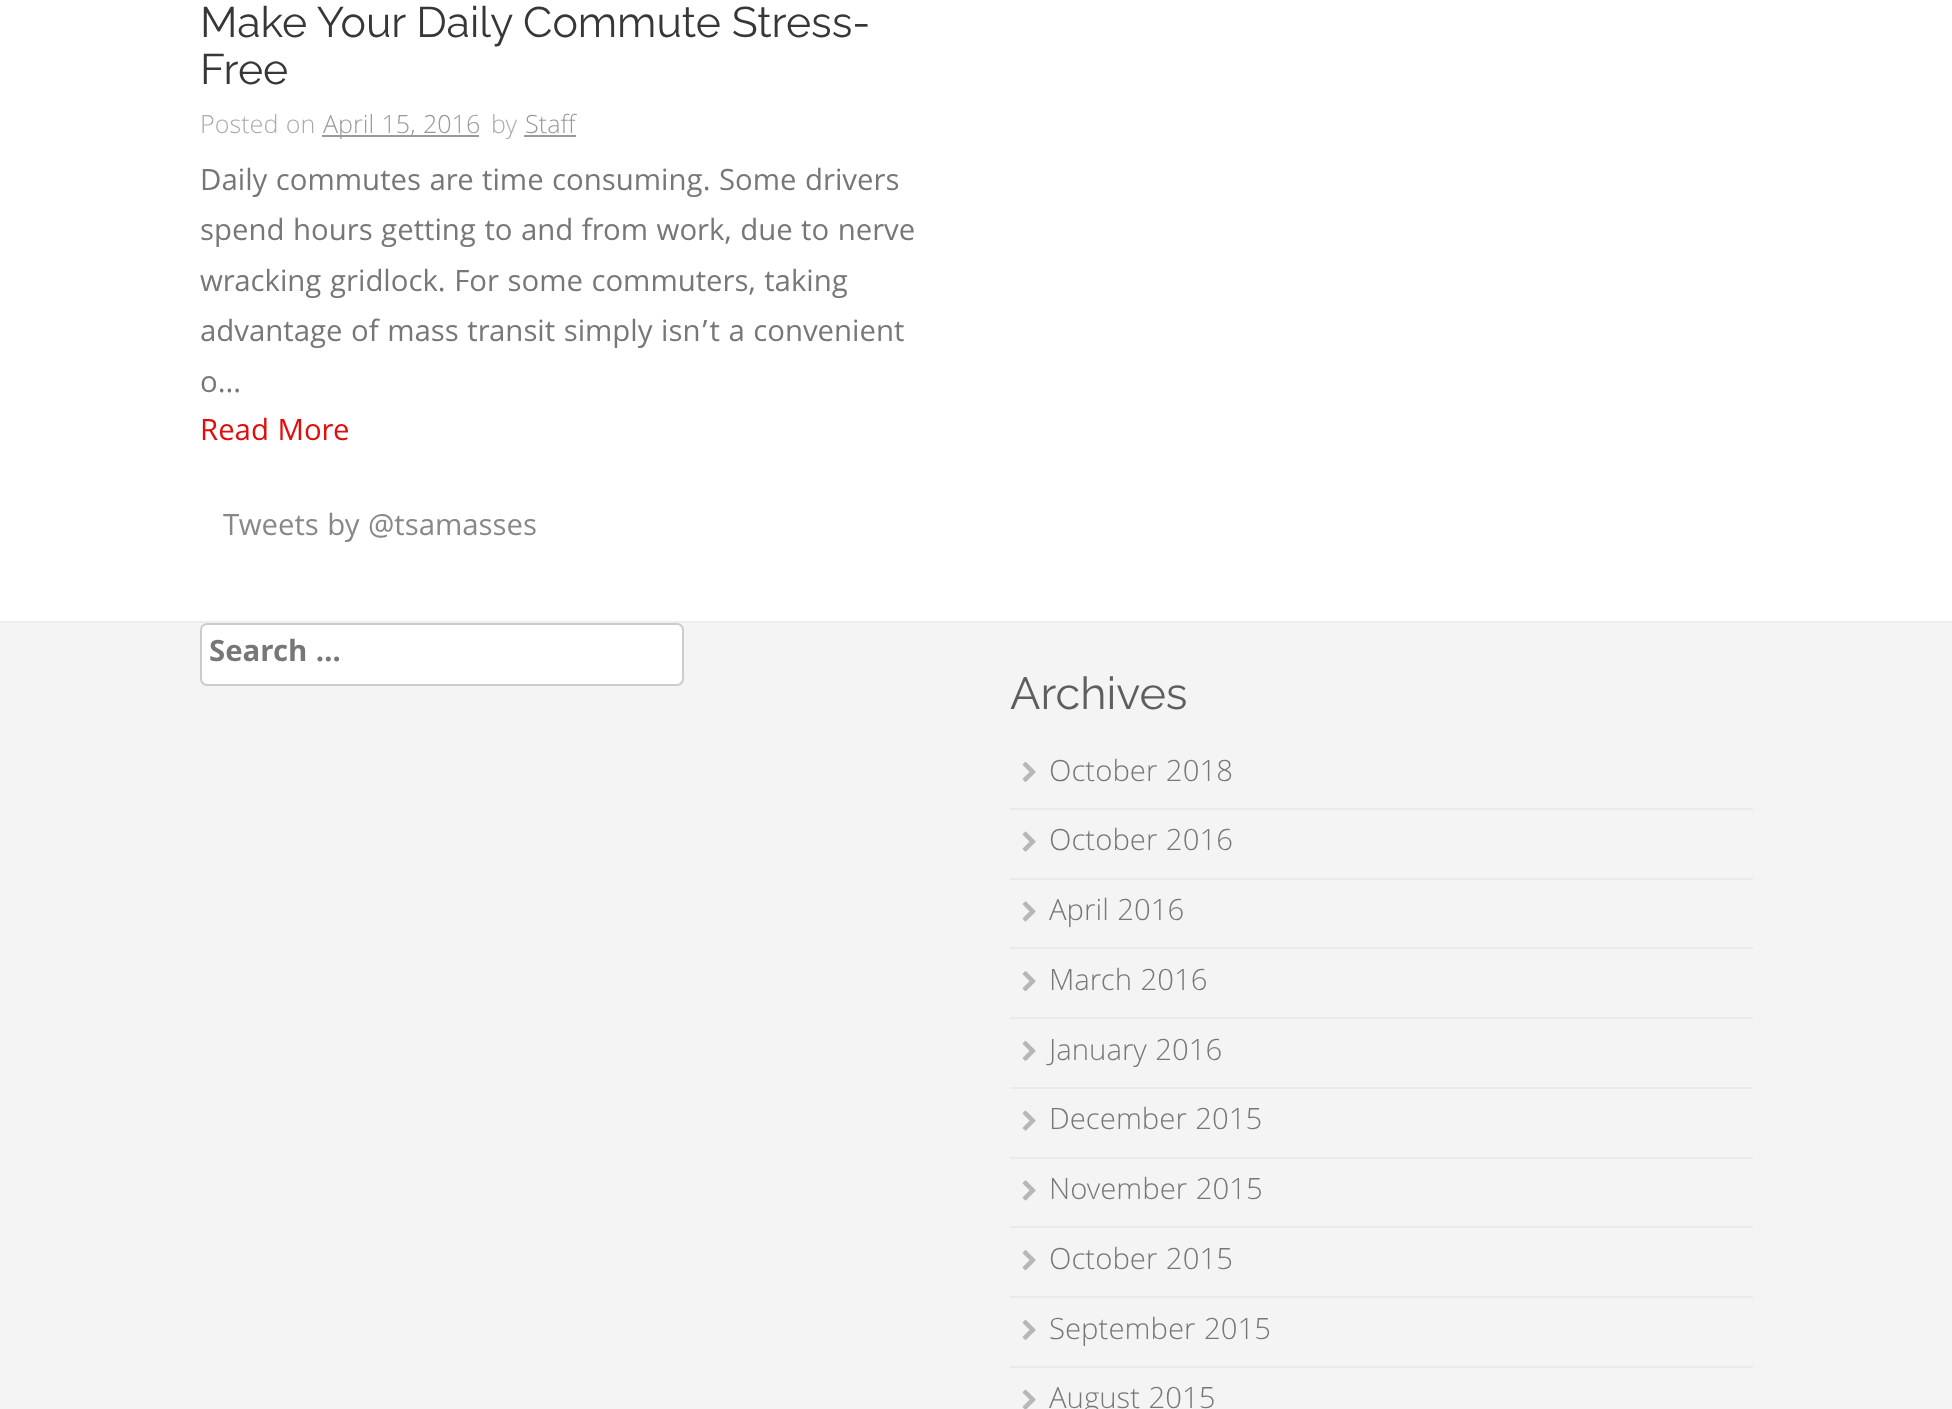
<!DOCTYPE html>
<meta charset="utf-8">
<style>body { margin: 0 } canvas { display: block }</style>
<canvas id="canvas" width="1952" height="1409"></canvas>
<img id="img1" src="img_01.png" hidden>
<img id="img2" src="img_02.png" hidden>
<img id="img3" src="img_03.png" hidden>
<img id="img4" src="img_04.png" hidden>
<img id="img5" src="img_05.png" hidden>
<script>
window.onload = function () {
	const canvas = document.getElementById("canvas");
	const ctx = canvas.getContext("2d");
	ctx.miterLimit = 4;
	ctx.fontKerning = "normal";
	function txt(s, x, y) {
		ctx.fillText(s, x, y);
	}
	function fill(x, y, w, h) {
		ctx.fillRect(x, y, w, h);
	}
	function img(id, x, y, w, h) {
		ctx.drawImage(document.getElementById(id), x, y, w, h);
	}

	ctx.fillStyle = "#FFFFFF";
	fill(0, 0, 1952, 1409);
	ctx.fillStyle = "#999999";
	fill(322, 135, 157, 2);
	fill(524, 135, 52, 2);
	ctx.fillStyle = "#F4F4F4";
	fill(0, 623, 1952, 786);
	ctx.fillStyle = "#EEEEEE";
	fill(0, 621, 1952, 2);
	ctx.fillStyle = "#FFFFFF";
	ctx.beginPath();
	ctx.roundRect(201, 624, 482, 61, 6);
	ctx.fill();
	ctx.strokeStyle = "#CCCCCC";
	ctx.lineWidth = 2;
	ctx.stroke();
	ctx.fillStyle = "#EAEAEA";
	fill(1010, 808, 743, 2);
	img("img1", 1022, 761, 14, 21);
	fill(1010, 878, 743, 2);
	img("img2", 1022, 831, 14, 21);
	fill(1010, 947, 743, 2);
	img("img3", 1022, 901, 14, 21);
	fill(1010, 1017, 743, 2);
	img("img4", 1022, 971, 14, 21);
	fill(1010, 1087, 743, 2);
	img("img1", 1022, 1040, 14, 21);
	fill(1010, 1157, 743, 2);
	img("img2", 1022, 1110, 14, 21);
	fill(1010, 1226, 743, 2);
	img("img3", 1022, 1180, 14, 21);
	fill(1010, 1296, 743, 2);
	img("img4", 1022, 1250, 14, 21);
	fill(1010, 1366, 743, 2);
	img("img1", 1022, 1319, 14, 21);
	img("img5", 1022, 1389, 14, 20);
	ctx.font = "42.75px Raleway";
	ctx.fillStyle = "#373737";
	txt("Make Your Daily Commute Stress-", 200, 37);
	txt("Free", 200, 84);
	ctx.font = "300 27px Khula";
	ctx.fillStyle = "#AAAAAA";
	txt("Posted on", 200, 133);
	ctx.fillStyle = "#999999";
	txt("April 15, 2016", 323, 133);
	ctx.fillStyle = "#AAAAAA";
	txt("by", 491, 133);
	ctx.fillStyle = "#999999";
	txt("Staff", 525, 133);
	ctx.font = "31.5px Khula";
	ctx.fillStyle = "#777777";
	txt("Daily commutes are time consuming. Some drivers", 200, 190);
	txt("spend hours getting to and from work, due to nerve", 200, 240);
	txt("wracking gridlock. For some commuters, taking", 200, 291);
	txt("advantage of mass transit simply isn’t a convenient", 200, 341);
	txt("o...", 200, 392);
	ctx.fillStyle = "#E10D0D";
	txt("Read More", 200, 440);
	ctx.fillStyle = "#888888";
	txt("Tweets by @tsamasses", 223, 535);
	ctx.font = "bold 31.5px Khula";
	ctx.fillStyle = "#777777";
	txt("Search …", 209, 661);
	ctx.font = "45px Raleway";
	ctx.fillStyle = "#5E5E5E";
	txt("Archives", 1010, 709);
	ctx.font = "300 31.5px Khula";
	ctx.fillStyle = "#777777";
	txt("October 2018", 1049, 781);
	txt("October 2016", 1049, 850);
	txt("April 2016", 1049, 920);
	txt("March 2016", 1049, 990);
	txt("January 2016", 1049, 1060);
	txt("December 2015", 1049, 1129);
	txt("November 2015", 1049, 1199);
	txt("October 2015", 1049, 1269);
	txt("September 2015", 1049, 1339);
	txt("August 2015", 1049, 1408);
};
</script>
